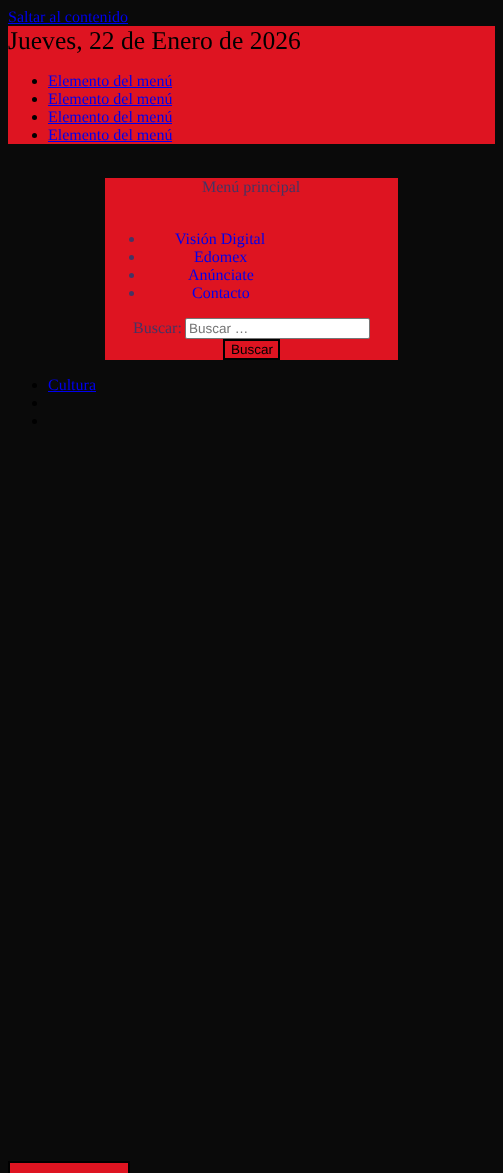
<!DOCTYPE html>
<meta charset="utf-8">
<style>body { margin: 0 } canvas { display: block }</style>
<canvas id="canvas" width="503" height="1173"></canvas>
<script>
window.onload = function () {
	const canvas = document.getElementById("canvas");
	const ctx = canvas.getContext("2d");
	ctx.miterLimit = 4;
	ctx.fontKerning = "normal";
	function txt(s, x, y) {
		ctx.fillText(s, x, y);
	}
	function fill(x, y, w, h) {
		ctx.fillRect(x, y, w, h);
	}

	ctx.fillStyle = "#0A0A0A";
	fill(0, 0, 503, 1173);
	ctx.fillStyle = "#0000EE";
	fill(8, 23, 120, 1);
	ctx.fillStyle = "#DE1421";
	fill(8, 26, 487, 118);
	ctx.fillStyle = "#000000";
	ctx.beginPath();
	ctx.arc(34.5, 81.5, 2.5, 0, Math.PI * 2);
	ctx.fill();
	ctx.fillStyle = "#0000EE";
	fill(48, 87, 124, 1);
	ctx.fillStyle = "#000000";
	ctx.beginPath();
	ctx.arc(34.5, 99.5, 2.5, 0, Math.PI * 2);
	ctx.fill();
	ctx.fillStyle = "#0000EE";
	fill(48, 105, 124, 1);
	ctx.fillStyle = "#000000";
	ctx.beginPath();
	ctx.arc(34.5, 117.5, 2.5, 0, Math.PI * 2);
	ctx.fill();
	ctx.fillStyle = "#0000EE";
	fill(48, 123, 124, 1);
	ctx.fillStyle = "#000000";
	ctx.beginPath();
	ctx.arc(34.5, 135.5, 2.5, 0, Math.PI * 2);
	ctx.fill();
	ctx.fillStyle = "#0000EE";
	fill(48, 141, 124, 1);
	ctx.fillStyle = "#DE1421";
	fill(105, 178, 293, 182);
	ctx.fillStyle = "#463463";
	ctx.beginPath();
	ctx.arc(131.5, 239.5, 2.5, 0, Math.PI * 2);
	ctx.fill();
	ctx.beginPath();
	ctx.arc(131.5, 257.5, 2.5, 0, Math.PI * 2);
	ctx.fill();
	ctx.beginPath();
	ctx.arc(131.5, 275.5, 2.5, 0, Math.PI * 2);
	ctx.fill();
	ctx.beginPath();
	ctx.arc(131.5, 293.5, 2.5, 0, Math.PI * 2);
	ctx.fill();
	ctx.fillStyle = "#FFFFFF";
	ctx.beginPath();
	ctx.roundRect(185.5, 318.5, 184, 20, 1.5);
	ctx.fill();
	ctx.strokeStyle = "#767676";
	ctx.stroke();
	ctx.strokeStyle = "#000000";
	ctx.lineWidth = 2;
	ctx.strokeRect(224, 340, 55, 19);
	ctx.fillStyle = "#000000";
	ctx.beginPath();
	ctx.arc(34.5, 385.5, 2.5, 0, Math.PI * 2);
	ctx.fill();
	ctx.fillStyle = "#0000EE";
	fill(48, 391, 48, 1);
	ctx.fillStyle = "#000000";
	ctx.beginPath();
	ctx.arc(34.5, 403.5, 2.5, 0, Math.PI * 2);
	ctx.fill();
	ctx.beginPath();
	ctx.arc(34.5, 421.5, 2.5, 0, Math.PI * 2);
	ctx.fill();
	ctx.fillStyle = "#DE1421";
	ctx.beginPath();
	ctx.rect(9, 1162, 120, 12);
	ctx.fill();
	ctx.stroke();
	ctx.font = "16px Liberation Serif";
	ctx.fillStyle = "#0000EE";
	txt("Saltar al contenido", 8, 22);
	ctx.font = "25.6px Liberation Serif";
	ctx.fillStyle = "#000000";
	txt("Jueves, 22 de Enero de 2026", 8, 49);
	ctx.font = "16px Liberation Serif";
	ctx.fillStyle = "#0000EE";
	txt("Elemento del menú", 48, 86);
	txt("Elemento del menú", 48, 104);
	txt("Elemento del menú", 48, 122);
	txt("Elemento del menú", 48, 140);
	ctx.fillStyle = "#463463";
	txt("Menú principal", 202, 192);
	ctx.fillStyle = "#0000EE";
	txt("Visión Digital", 175, 244);
	txt("Edomex", 194, 262);
	txt("Anúnciate", 188, 280);
	txt("Contacto", 192, 298);
	ctx.fillStyle = "#463463";
	txt("Buscar:", 133, 333);
	ctx.font = "13.5px Liberation Sans";
	ctx.fillStyle = "#757575";
	txt("Buscar …", 189, 333);
	ctx.fillStyle = "#000000";
	txt("Buscar", 231, 354);
	ctx.font = "16px Liberation Serif";
	ctx.fillStyle = "#0000EE";
	txt("Cultura", 48, 390);
};
</script>
